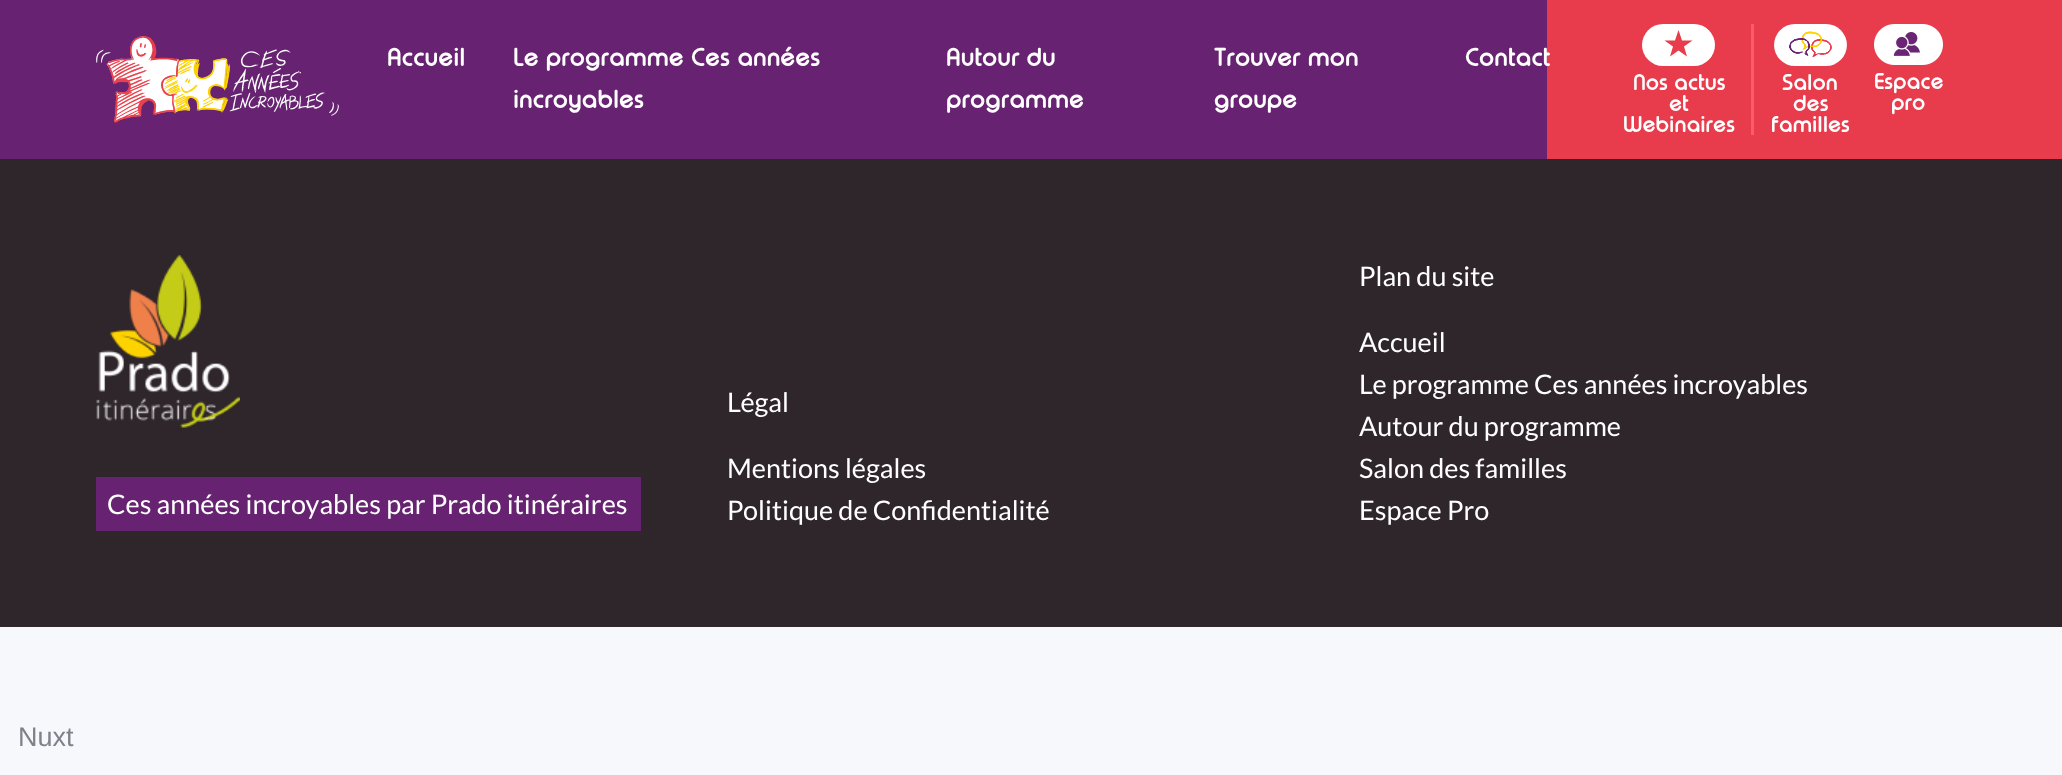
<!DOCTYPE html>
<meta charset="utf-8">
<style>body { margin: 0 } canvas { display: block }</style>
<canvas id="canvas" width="2062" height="775"></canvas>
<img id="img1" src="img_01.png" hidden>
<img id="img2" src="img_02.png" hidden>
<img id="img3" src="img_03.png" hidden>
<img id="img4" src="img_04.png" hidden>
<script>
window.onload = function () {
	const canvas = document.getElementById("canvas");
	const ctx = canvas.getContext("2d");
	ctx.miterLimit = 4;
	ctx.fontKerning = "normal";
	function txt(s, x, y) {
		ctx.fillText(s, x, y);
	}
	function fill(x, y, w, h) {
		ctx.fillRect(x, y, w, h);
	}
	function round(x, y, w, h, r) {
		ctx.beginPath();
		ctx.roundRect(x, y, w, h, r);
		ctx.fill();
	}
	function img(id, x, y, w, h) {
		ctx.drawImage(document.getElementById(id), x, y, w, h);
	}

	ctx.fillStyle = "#F7F8FB";
	fill(0, 0, 2062, 775);
	ctx.fillStyle = "#672371";
	fill(0, 0, 1547, 159);
	ctx.fillStyle = "#E83B4B";
	fill(1547, 0, 515, 159);
	img("img1", 96, 36, 243, 87);
	ctx.fillStyle = "#FFFFFF";
	round(1642, 24, 73, 42, 21);
	ctx.fillStyle = "#E83B4B";
	ctx.beginPath();
	ctx.moveTo(1678.5, 30);
	ctx.lineTo(1682, 40.5);
	ctx.lineTo(1692.5, 40.5);
	ctx.lineTo(1684, 46.5);
	ctx.lineTo(1687, 56.5);
	ctx.lineTo(1678.5, 50.5);
	ctx.lineTo(1670, 56.5);
	ctx.lineTo(1673, 46.5);
	ctx.lineTo(1664.5, 40.5);
	ctx.lineTo(1675, 40.5);
	ctx.closePath();
	ctx.fill();
	ctx.fillStyle = "#FF5A68";
	fill(1751, 24, 3, 111);
	img("img2", 1774, 24, 73, 42);
	img("img3", 1874, 24, 69, 41);
	ctx.fillStyle = "#2F262B";
	fill(0, 159, 2062, 468);
	img("img4", 96, 255, 144, 173);
	ctx.fillStyle = "#672371";
	fill(96, 477, 545, 54);
	ctx.font = "bold 24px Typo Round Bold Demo";
	ctx.fillStyle = "#FFFFFF";
	txt("Accueil", 387, 66);
	txt("Le programme Ces années", 513, 66);
	txt("incroyables", 513, 108);
	txt("Autour du", 946, 66);
	txt("programme", 946, 108);
	txt("Trouver mon", 1214, 66);
	txt("groupe", 1214, 108);
	txt("Contact", 1465, 66);
	ctx.font = "bold 21px Typo Round Bold Demo";
	txt("Nos actus", 1633, 90);
	txt("et", 1669, 111);
	txt("Webinaires", 1623, 132);
	txt("Salon", 1782, 90);
	txt("des", 1793, 111);
	txt("familles", 1771, 132);
	txt("Espace", 1874, 89);
	txt("pro", 1891, 110);
	ctx.font = "27px Lato";
	txt("Ces années incroyables par Prado itinéraires", 107, 514);
	txt("Légal", 727, 412);
	txt("Mentions légales", 727, 478);
	txt("Politique de Confidentialité", 727, 520);
	txt("Plan du site", 1359, 286);
	txt("Accueil", 1359, 352);
	txt("Le programme Ces années incroyables", 1359, 394);
	txt("Autour du programme", 1359, 436);
	txt("Salon des familles", 1359, 478);
	txt("Espace Pro", 1359, 520);
	ctx.font = "27px Liberation Sans";
	ctx.fillStyle = "#7F828B";
	txt("Nuxt", 18, 746);
};
</script>
